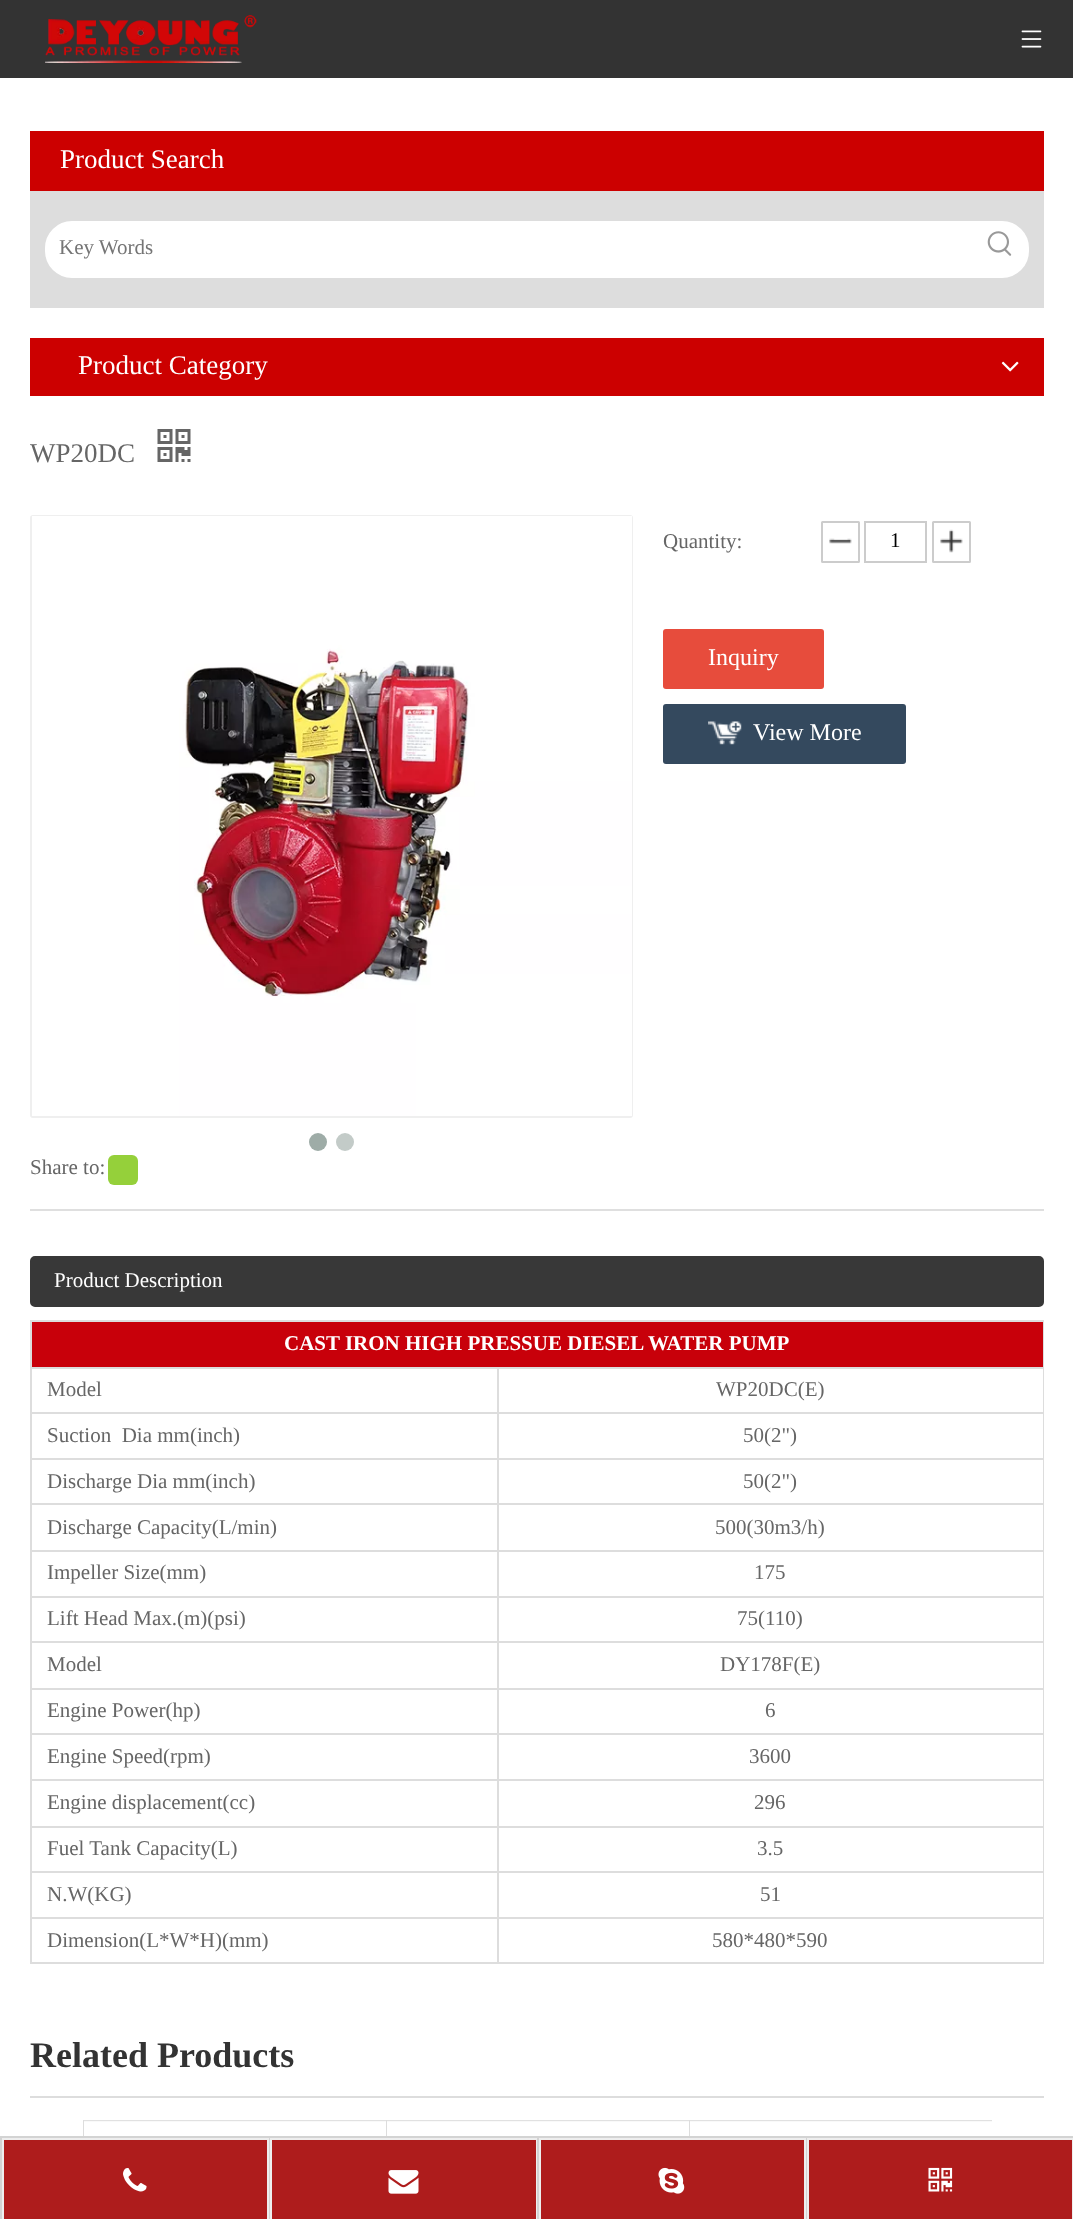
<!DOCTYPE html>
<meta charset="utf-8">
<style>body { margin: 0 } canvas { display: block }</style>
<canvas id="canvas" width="1073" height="2219"></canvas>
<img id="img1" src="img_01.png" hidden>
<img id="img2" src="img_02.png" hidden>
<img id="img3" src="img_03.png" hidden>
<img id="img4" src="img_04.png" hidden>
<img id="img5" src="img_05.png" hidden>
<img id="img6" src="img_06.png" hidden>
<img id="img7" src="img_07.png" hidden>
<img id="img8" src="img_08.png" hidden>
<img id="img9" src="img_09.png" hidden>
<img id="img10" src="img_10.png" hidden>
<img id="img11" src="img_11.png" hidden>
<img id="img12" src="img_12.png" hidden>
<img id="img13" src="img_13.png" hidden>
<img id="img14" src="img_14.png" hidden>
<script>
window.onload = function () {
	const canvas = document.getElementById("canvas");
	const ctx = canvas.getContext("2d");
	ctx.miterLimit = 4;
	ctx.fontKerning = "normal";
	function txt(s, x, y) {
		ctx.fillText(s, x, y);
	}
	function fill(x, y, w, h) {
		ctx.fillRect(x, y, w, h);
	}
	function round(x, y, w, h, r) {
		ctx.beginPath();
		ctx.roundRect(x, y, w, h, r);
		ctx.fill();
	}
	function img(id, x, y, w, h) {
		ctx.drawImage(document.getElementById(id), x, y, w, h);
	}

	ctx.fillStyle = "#FFFFFF";
	fill(0, 0, 1073, 2219);
	ctx.fillStyle = "#333333";
	fill(0, 0, 1073, 78);
	img("img1", 45, 15, 212, 48);
	img("img2", 1021, 30, 21, 18);
	ctx.fillStyle = "#DDDDDD";
	fill(30, 191, 1014, 117);
	ctx.fillStyle = "#CC0000";
	fill(30, 131, 1014, 60);
	ctx.fillStyle = "#FFFFFF";
	ctx.beginPath();
	ctx.roundRect(46, 222, 982, 55, 26);
	ctx.fill();
	ctx.strokeStyle = "#FFFFFF";
	ctx.lineWidth = 2;
	ctx.stroke();
	img("img3", 987, 231, 25, 25);
	ctx.fillStyle = "#CC0000";
	fill(30, 338, 1014, 58);
	img("img4", 1001, 361, 18, 11);
	img("img5", 157, 429, 34, 33);
	img("img6", 829, 538, 23, 6);
	ctx.beginPath();
	ctx.roundRect(822, 522, 37, 40, 0.5);
	ctx.strokeStyle = "#CCCCCC";
	ctx.stroke();
	ctx.strokeRect(865, 522, 61, 40);
	img("img7", 940, 529, 23, 24);
	ctx.beginPath();
	ctx.roundRect(933, 522, 37, 40, 0.5);
	ctx.stroke();
	ctx.fillStyle = "#E74C3C";
	round(663, 629, 161, 60, 3);
	ctx.fillStyle = "#34495E";
	round(663, 704, 243, 60, 3);
	img("img8", 708, 721, 34, 24);
	ctx.beginPath();
	ctx.roundRect(31, 516, 601, 601, 2);
	ctx.strokeStyle = "#EFEFEF";
	ctx.stroke();
	img("img9", 32, 516, 600, 600);
	ctx.fillStyle = "#9EACA7";
	ctx.beginPath();
	ctx.arc(318, 1142, 9, 0, Math.PI * 2);
	ctx.fill();
	ctx.fillStyle = "#C3CBC8";
	ctx.beginPath();
	ctx.arc(345, 1142, 9, 0, Math.PI * 2);
	ctx.fill();
	ctx.fillStyle = "#95D03A";
	round(108, 1155, 30, 30, 6);
	ctx.fillStyle = "#DFDFDF";
	fill(30, 1209, 1014, 2);
	ctx.fillStyle = "#383838";
	ctx.beginPath();
	ctx.roundRect(31, 1257, 1012, 49, 4);
	ctx.fill();
	ctx.strokeStyle = "#383838";
	ctx.stroke();
	ctx.fillStyle = "#C8000A";
	fill(32, 1322, 1011, 45);
	ctx.fillStyle = "#DDDDDD";
	fill(30, 1320, 1014, 2);
	fill(497, 1367, 547, 2);
	fill(497, 1412, 547, 2);
	fill(497, 1458, 547, 2);
	fill(497, 1503, 547, 2);
	fill(497, 1550, 547, 2);
	fill(497, 1596, 547, 2);
	fill(497, 1641, 547, 2);
	fill(497, 1688, 547, 2);
	fill(497, 1733, 547, 2);
	fill(497, 1779, 547, 2);
	fill(497, 1826, 547, 2);
	fill(497, 1871, 547, 2);
	fill(497, 1917, 547, 2);
	fill(1043, 1917, 1, 47);
	fill(1043, 1871, 1, 48);
	fill(1043, 1826, 1, 46);
	fill(1043, 1779, 1, 48);
	fill(1043, 1733, 1, 48);
	fill(1043, 1688, 1, 46);
	fill(1043, 1641, 1, 48);
	fill(1043, 1596, 1, 47);
	fill(1043, 1550, 1, 48);
	fill(1043, 1503, 1, 48);
	fill(1043, 1458, 1, 47);
	fill(1043, 1412, 1, 48);
	fill(1043, 1367, 1, 46);
	fill(1043, 1320, 1, 48);
	fill(497, 1962, 547, 2);
	fill(497, 1917, 2, 47);
	fill(30, 1917, 468, 2);
	fill(497, 1871, 2, 48);
	fill(30, 1871, 468, 2);
	fill(497, 1826, 2, 46);
	fill(30, 1826, 468, 2);
	fill(497, 1779, 2, 48);
	fill(30, 1779, 468, 2);
	fill(497, 1733, 2, 48);
	fill(30, 1733, 468, 2);
	fill(497, 1688, 2, 46);
	fill(30, 1688, 468, 2);
	fill(497, 1641, 2, 48);
	fill(30, 1641, 468, 2);
	fill(497, 1596, 2, 47);
	fill(30, 1596, 468, 2);
	fill(497, 1550, 2, 48);
	fill(30, 1550, 468, 2);
	fill(497, 1503, 2, 48);
	fill(30, 1503, 468, 2);
	fill(497, 1458, 2, 47);
	fill(30, 1458, 468, 2);
	fill(497, 1412, 2, 48);
	fill(30, 1412, 468, 2);
	fill(497, 1367, 2, 46);
	fill(30, 1367, 468, 2);
	fill(30, 1962, 468, 2);
	fill(30, 1917, 2, 47);
	fill(30, 1871, 2, 48);
	fill(30, 1826, 2, 46);
	fill(30, 1779, 2, 48);
	fill(30, 1733, 2, 48);
	fill(30, 1688, 2, 46);
	fill(30, 1641, 2, 48);
	fill(30, 1596, 2, 47);
	fill(30, 1550, 2, 48);
	fill(30, 1503, 2, 48);
	fill(30, 1458, 2, 47);
	fill(30, 1412, 2, 48);
	fill(30, 1367, 2, 46);
	fill(30, 1320, 2, 48);
	fill(30, 2096, 1014, 2);
	ctx.strokeStyle = "#DDDDDD";
	ctx.strokeRect(84, 2121, 301, 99);
	img("img10", 84, 2120, 302, 16);
	ctx.strokeRect(387, 2121, 301, 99);
	img("img10", 387, 2120, 302, 16);
	ctx.strokeRect(690, 2121, 301, 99);
	img("img10", 690, 2120, 302, 16);
	ctx.fillStyle = "#D3D3D3";
	fill(0, 2136, 1073, 2);
	fill(0, 2138, 2, 81);
	ctx.fillStyle = "#AE1C1C";
	fill(4, 2140, 263, 79);
	ctx.fillStyle = "#EEEEEE";
	fill(2, 2138, 267, 2);
	fill(267, 2138, 2, 81);
	fill(2, 2138, 2, 81);
	img("img11", 123, 2168, 24, 24);
	ctx.fillStyle = "#D3D3D3";
	fill(269, 2138, 1, 81);
	ctx.fillStyle = "#AE1C1C";
	fill(272, 2140, 264, 79);
	ctx.fillStyle = "#EEEEEE";
	fill(270, 2138, 267, 2);
	fill(536, 2138, 1, 81);
	fill(270, 2138, 2, 81);
	img("img12", 388, 2170, 31, 24);
	ctx.fillStyle = "#D3D3D3";
	fill(537, 2138, 2, 81);
	ctx.fillStyle = "#AE1C1C";
	fill(541, 2140, 263, 79);
	ctx.fillStyle = "#EEEEEE";
	fill(539, 2138, 267, 2);
	fill(804, 2138, 2, 81);
	fill(539, 2138, 2, 81);
	img("img13", 658, 2167, 27, 27);
	ctx.fillStyle = "#D3D3D3";
	fill(806, 2138, 1, 81);
	ctx.fillStyle = "#AE1C1C";
	ctx.beginPath();
	ctx.rect(808, 2139, 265, 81);
	ctx.fill();
	ctx.strokeStyle = "#EEEEEE";
	ctx.stroke();
	img("img14", 928, 2167, 25, 25);
	ctx.font = "27px Liberation Serif";
	ctx.fillStyle = "#FFFFFF";
	txt("Product Search", 60, 168);
	ctx.font = "21px Liberation Serif";
	ctx.fillStyle = "#757575";
	txt("Key Words", 59, 254);
	ctx.font = "27px Liberation Serif";
	ctx.fillStyle = "#FFFFFF";
	txt("Product Category", 78, 374);
	ctx.fillStyle = "#666666";
	txt("WP20DC", 30, 462);
	ctx.font = "21px Liberation Serif";
	txt("Quantity:", 663, 548);
	ctx.fillStyle = "#000000";
	txt("1", 890, 547);
	ctx.font = "24px Liberation Serif";
	ctx.fillStyle = "#FFFFFF";
	txt("Inquiry", 708, 665);
	txt("View More", 753, 740);
	ctx.font = "21px Liberation Serif";
	ctx.fillStyle = "#666666";
	txt("Share to:", 30, 1174);
	ctx.fillStyle = "#FFFFFF";
	txt("Product Description", 54, 1287);
	ctx.font = "bold 21px Liberation Serif";
	txt("CAST IRON HIGH PRESSUE DIESEL WATER PUMP", 284, 1350);
	ctx.font = "21px Liberation Serif";
	ctx.fillStyle = "#666666";
	txt("Model", 47, 1396);
	txt("WP20DC(E)", 716, 1396);
	txt("Suction  Dia mm(inch)", 47, 1442);
	txt("50(2\")", 743, 1442);
	txt("Discharge Dia mm(inch)", 47, 1488);
	txt("50(2\")", 743, 1488);
	txt("Discharge Capacity(L/min)", 47, 1534);
	txt("500(30m3/h)", 715, 1534);
	txt("Impeller Size(mm)", 47, 1579);
	txt("175", 754, 1579);
	txt("Lift Head Max.(m)(psi)", 47, 1625);
	txt("75(110)", 737, 1625);
	txt("Model", 47, 1671);
	txt("DY178F(E)", 720, 1671);
	txt("Engine Power(hp)", 47, 1717);
	txt("6", 765, 1717);
	txt("Engine Speed(rpm)", 47, 1763);
	txt("3600", 749, 1763);
	txt("Engine displacement(cc)", 47, 1809);
	txt("296", 754, 1809);
	txt("Fuel Tank Capacity(L)", 47, 1855);
	txt("3.5", 757, 1855);
	txt("N.W(KG)", 47, 1901);
	txt("51", 760, 1901);
	txt("Dimension(L*W*H)(mm)", 47, 1947);
	txt("580*480*590", 712, 1947);
	ctx.font = "bold 36px Liberation Serif";
	ctx.fillStyle = "#333333";
	txt("Related Products", 30, 2067);
};
</script>
